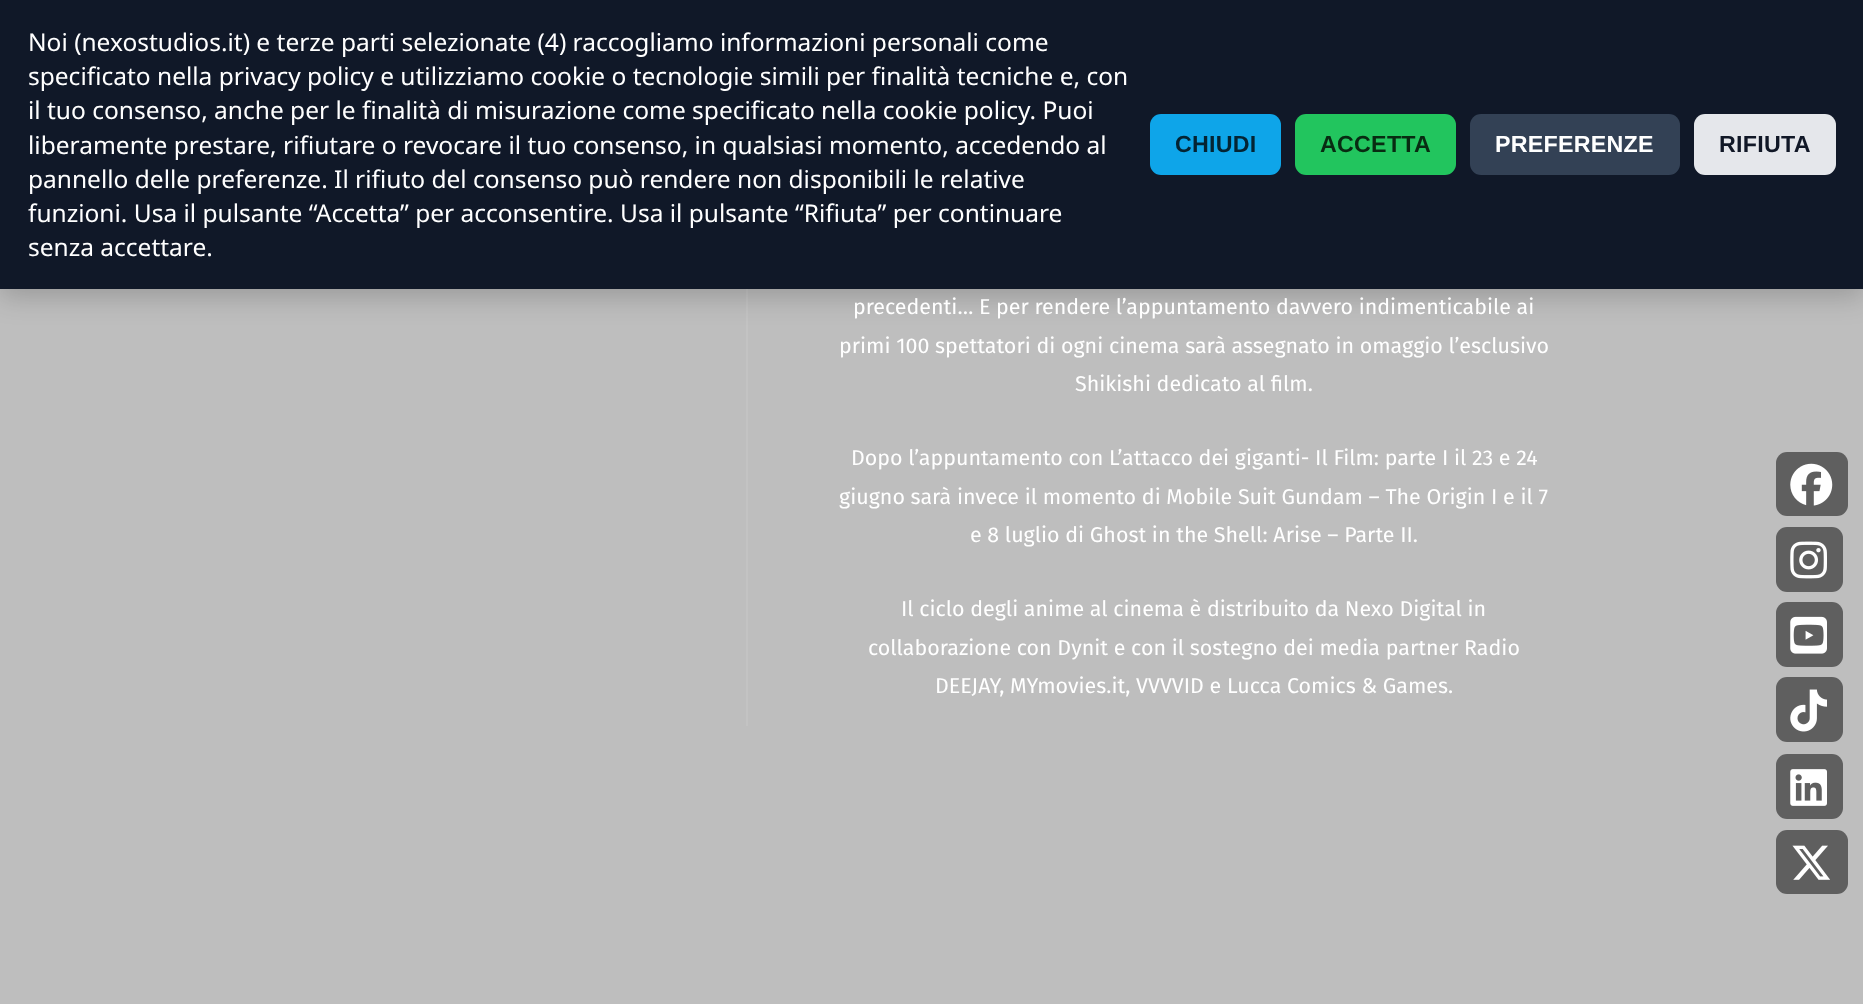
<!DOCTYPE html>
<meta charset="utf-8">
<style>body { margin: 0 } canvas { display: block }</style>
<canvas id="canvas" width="1863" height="1004"></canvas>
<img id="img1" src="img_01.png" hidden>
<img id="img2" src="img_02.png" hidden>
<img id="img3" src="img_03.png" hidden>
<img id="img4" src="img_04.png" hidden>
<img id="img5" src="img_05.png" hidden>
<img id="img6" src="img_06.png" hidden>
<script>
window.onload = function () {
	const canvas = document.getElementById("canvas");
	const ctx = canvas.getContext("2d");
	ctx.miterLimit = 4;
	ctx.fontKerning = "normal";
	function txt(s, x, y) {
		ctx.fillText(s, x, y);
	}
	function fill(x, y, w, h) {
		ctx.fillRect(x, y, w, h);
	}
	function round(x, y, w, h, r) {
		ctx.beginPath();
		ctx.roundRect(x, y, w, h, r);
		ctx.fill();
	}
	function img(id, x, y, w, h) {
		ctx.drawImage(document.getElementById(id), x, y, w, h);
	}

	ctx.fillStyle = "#BEBEBE";
	fill(0, 0, 1863, 1004);
	ctx.fillStyle = "#C3C3C3";
	fill(746, 289, 2, 437);
	ctx.fillStyle = "rgba(0, 0, 0, 0.2)";
	ctx.filter = "blur(14px)";
	ctx.beginPath();
	ctx.rect(0, 7, 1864, 289);
	ctx.fill();
	ctx.filter = "none";
	ctx.fillStyle = "#101828";
	fill(0, 0, 1863, 289);
	ctx.fillStyle = "#0EA5E9";
	round(1150, 114, 131, 61, 11);
	ctx.fillStyle = "#22C55E";
	round(1295, 114, 161, 61, 11);
	ctx.fillStyle = "#334155";
	round(1470, 114, 210, 61, 11);
	ctx.fillStyle = "#E5E7EB";
	round(1694, 114, 142, 61, 11);
	ctx.fillStyle = "#5F5F5F";
	round(1776, 452, 72, 64, 11);
	img("img1", 1790, 463, 43, 43);
	round(1776, 527, 67, 65, 11);
	img("img2", 1790, 541, 37, 38);
	round(1776, 602, 67, 65, 11);
	img("img3", 1790, 616, 37, 38);
	round(1776, 677, 67, 65, 11);
	img("img4", 1790, 689, 37, 43);
	round(1776, 754, 67, 65, 11);
	img("img5", 1790, 769, 37, 37);
	round(1776, 830, 72, 64, 11);
	img("img6", 1792, 845, 38, 35);
	ctx.font = "24.5px Noto Sans";
	ctx.fillStyle = "#FFFFFF";
	txt("Noi (nexostudios.it) e terze parti selezionate (4) raccogliamo informazioni personali come", 28, 51);
	txt("specificato nella privacy policy e utilizziamo cookie o tecnologie simili per finalità tecniche e, con", 28, 85);
	txt("il tuo consenso, anche per le finalità di misurazione come specificato nella cookie policy. Puoi", 28, 119);
	txt("liberamente prestare, rifiutare o revocare il tuo consenso, in qualsiasi momento, accedendo al", 28, 154);
	txt("pannello delle preferenze. Il rifiuto del consenso può rendere non disponibili le relative", 28, 188);
	txt("funzioni. Usa il pulsante “Accetta” per acconsentire. Usa il pulsante “Rifiuta” per continuare", 28, 222);
	txt("senza accettare.", 28, 256);
	ctx.letterSpacing = "0.25px";
	ctx.font = "bold 23.25px Liberation Sans";
	ctx.fillStyle = "#042433";
	txt("CHIUDI", 1175, 152);
	ctx.fillStyle = "#082B12";
	txt("ACCETTA", 1320, 152);
	ctx.fillStyle = "#FFFFFF";
	txt("PREFERENZE", 1495, 152);
	ctx.fillStyle = "#111827";
	txt("RIFIUTA", 1719, 152);
	ctx.letterSpacing = "0px";
	ctx.font = "21.45px Fira Sans";
	ctx.fillStyle = "#FFFFFF";
	txt("precedenti… E per rendere l’appuntamento davvero indimenticabile ai", 853, 314);
	txt("primi 100 spettatori di ogni cinema sarà assegnato in omaggio l’esclusivo", 839, 353);
	txt("Shikishi dedicato al film.", 1075, 391);
	txt("Dopo l’appuntamento con L’attacco dei giganti- Il Film: parte I il 23 e 24", 851, 465);
	txt("giugno sarà invece il momento di Mobile Suit Gundam – The Origin I e il 7", 839, 504);
	txt("e 8 luglio di Ghost in the Shell: Arise – Parte II.", 970, 542);
	txt("Il ciclo degli anime al cinema è distribuito da Nexo Digital in", 901, 616);
	txt("collaborazione con Dynit e con il sostegno dei media partner Radio", 868, 655);
	txt("DEEJAY, MYmovies.it, VVVVID e Lucca Comics & Games.", 935, 693);
};
</script>
